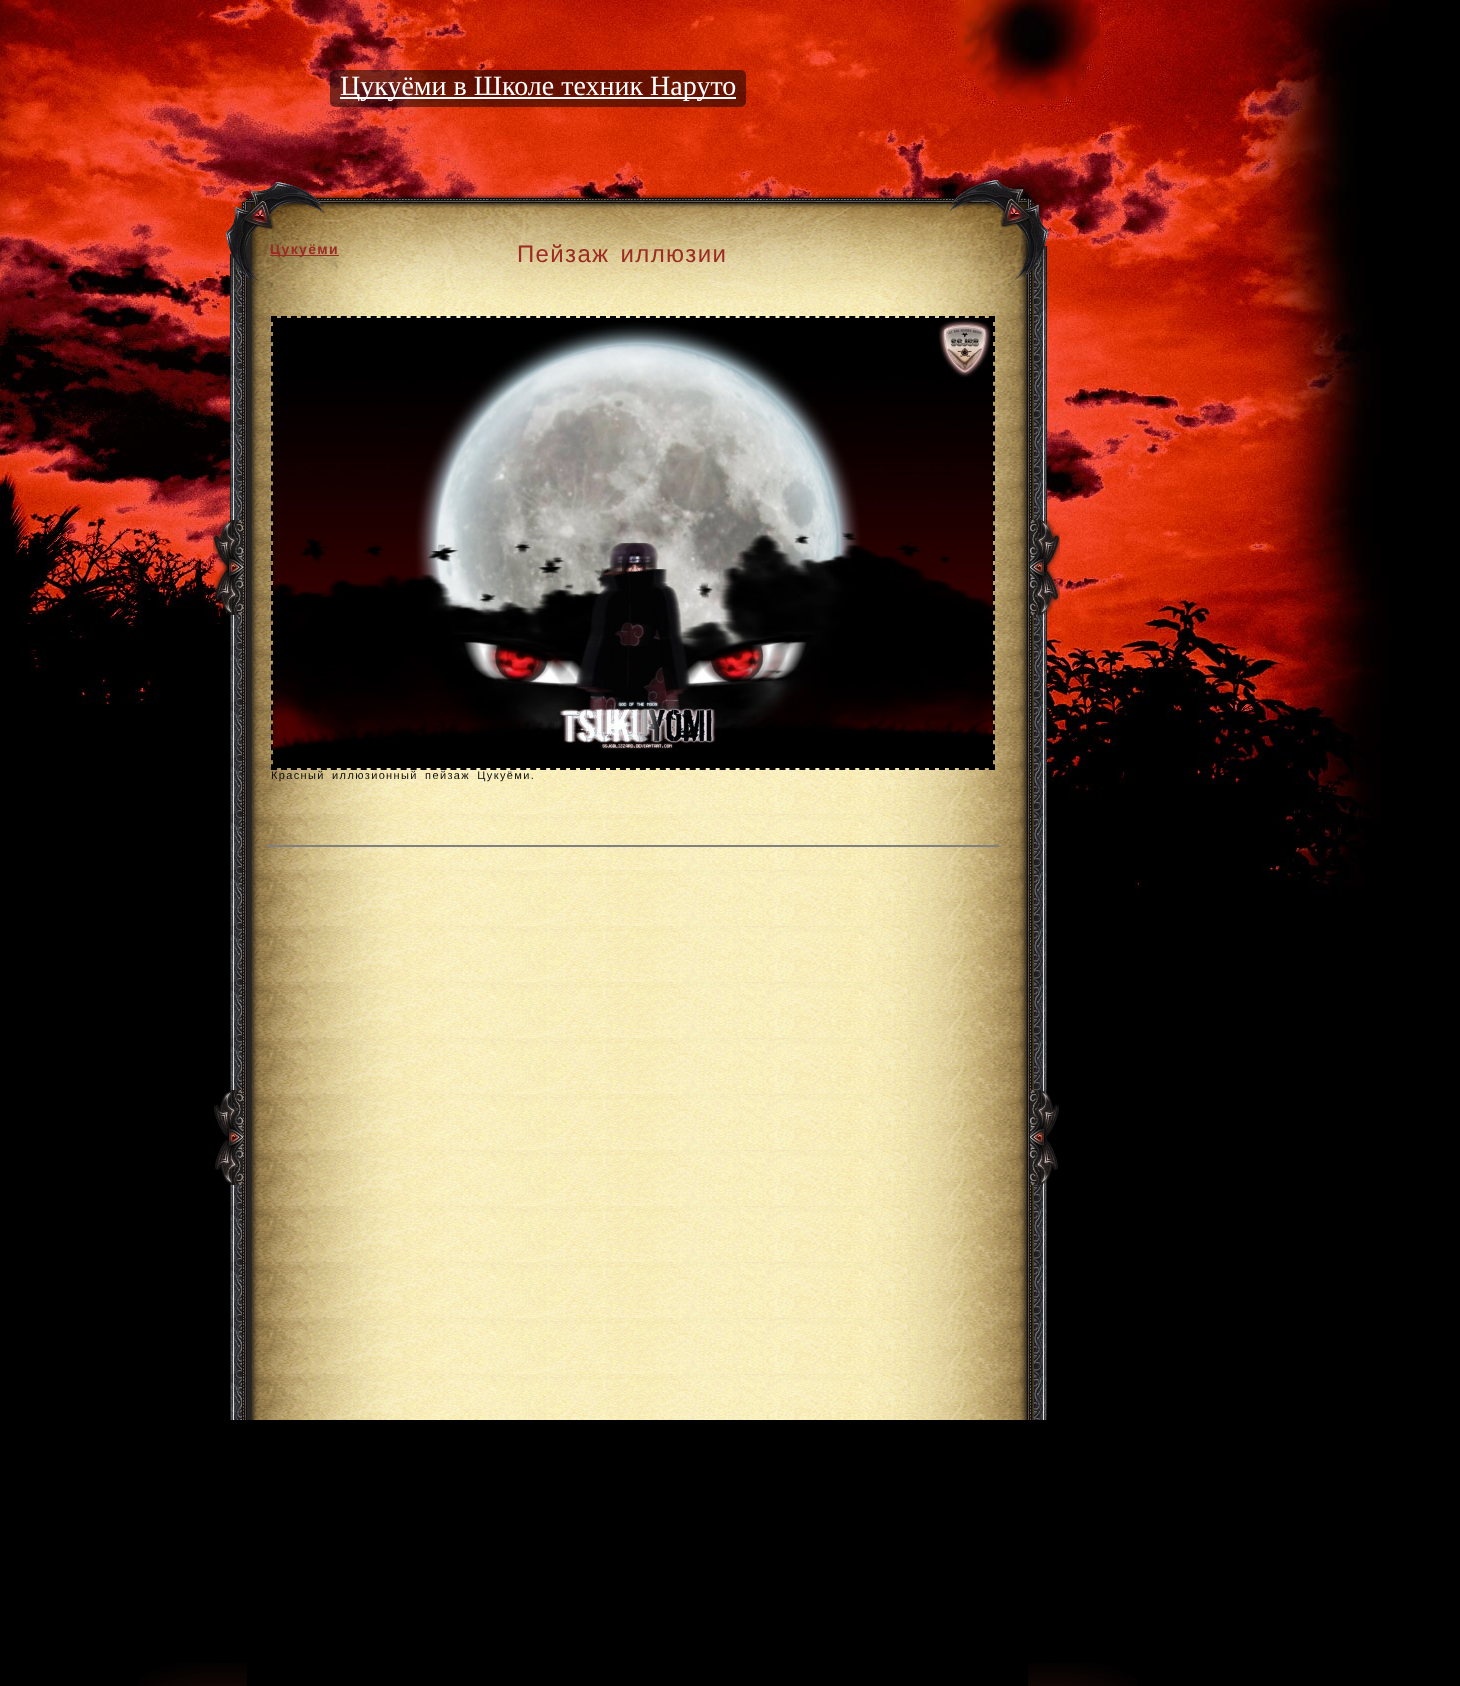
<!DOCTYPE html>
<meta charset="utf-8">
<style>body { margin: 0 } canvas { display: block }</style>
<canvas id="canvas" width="1460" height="1686"></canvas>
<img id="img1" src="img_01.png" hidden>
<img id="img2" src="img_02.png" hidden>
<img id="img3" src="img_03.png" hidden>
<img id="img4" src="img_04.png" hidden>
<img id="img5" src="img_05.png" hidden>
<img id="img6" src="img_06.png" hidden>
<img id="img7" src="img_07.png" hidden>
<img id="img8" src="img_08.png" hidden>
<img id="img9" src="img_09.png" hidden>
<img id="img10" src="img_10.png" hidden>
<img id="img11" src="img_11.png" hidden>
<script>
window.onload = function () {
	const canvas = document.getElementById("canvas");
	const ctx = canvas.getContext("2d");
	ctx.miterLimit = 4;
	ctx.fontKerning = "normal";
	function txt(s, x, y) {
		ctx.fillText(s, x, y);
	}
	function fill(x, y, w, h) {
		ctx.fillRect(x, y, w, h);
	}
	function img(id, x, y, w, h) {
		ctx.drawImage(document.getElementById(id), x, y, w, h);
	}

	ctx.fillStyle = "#000000";
	fill(0, 0, 1460, 1686);
	img("img1", 0, 0, 1390, 969);
	img("img2", 330, 70, 416, 37);
	ctx.fillStyle = "#FFFFFF";
	fill(340, 97, 396, 2);
	img("img3", 226, 180, 823, 130);
	img("img4", 230, 310, 817, 1110);
	img("img5", 213, 520, 30, 95);
	ctx.fillStyle = "#9B2B23";
	fill(270, 255, 69, 1);
	ctx.beginPath();
	ctx.moveTo(271, 317);
	ctx.lineTo(995, 317);
	ctx.strokeStyle = "#000000";
	ctx.lineWidth = 2;
	ctx.setLineDash([6, 3.97]);
	ctx.stroke();
	ctx.beginPath();
	ctx.moveTo(994, 316);
	ctx.lineTo(994, 770);
	ctx.setLineDash([6, 3.96]);
	ctx.stroke();
	ctx.beginPath();
	ctx.moveTo(271, 769);
	ctx.lineTo(995, 769);
	ctx.setLineDash([6, 3.97]);
	ctx.stroke();
	ctx.beginPath();
	ctx.moveTo(272, 316);
	ctx.lineTo(272, 770);
	ctx.setLineDash([6, 3.96]);
	ctx.stroke();
	img("img6", 273, 318, 720, 450);
	ctx.fillStyle = "#808080";
	fill(267, 845, 732, 2);
	img("img7", 1030, 520, 30, 95);
	img("img8", 214, 1090, 29, 95);
	img("img9", 1030, 1090, 29, 95);
	img("img10", 138, 1663, 109, 23);
	img("img11", 1028, 1663, 109, 23);
	ctx.font = "28px Liberation Serif";
	ctx.fillStyle = "#FFFFFF";
	txt("Цукуёми в Школе техник Наруто", 340, 95);
	ctx.letterSpacing = "1.35px";
	ctx.font = "bold 14px Liberation Sans";
	ctx.fillStyle = "#9B2B23";
	txt("Цукуёми", 270, 254);
	ctx.wordSpacing = "3px";
	ctx.font = "24px Liberation Sans";
	txt("Пейзаж иллюзии", 517, 262);
	ctx.font = "11px Liberation Sans";
	ctx.fillStyle = "#0A0A0A";
	txt("Красный иллюзионный пейзаж Цукуёми.", 271, 779);
};
</script>
